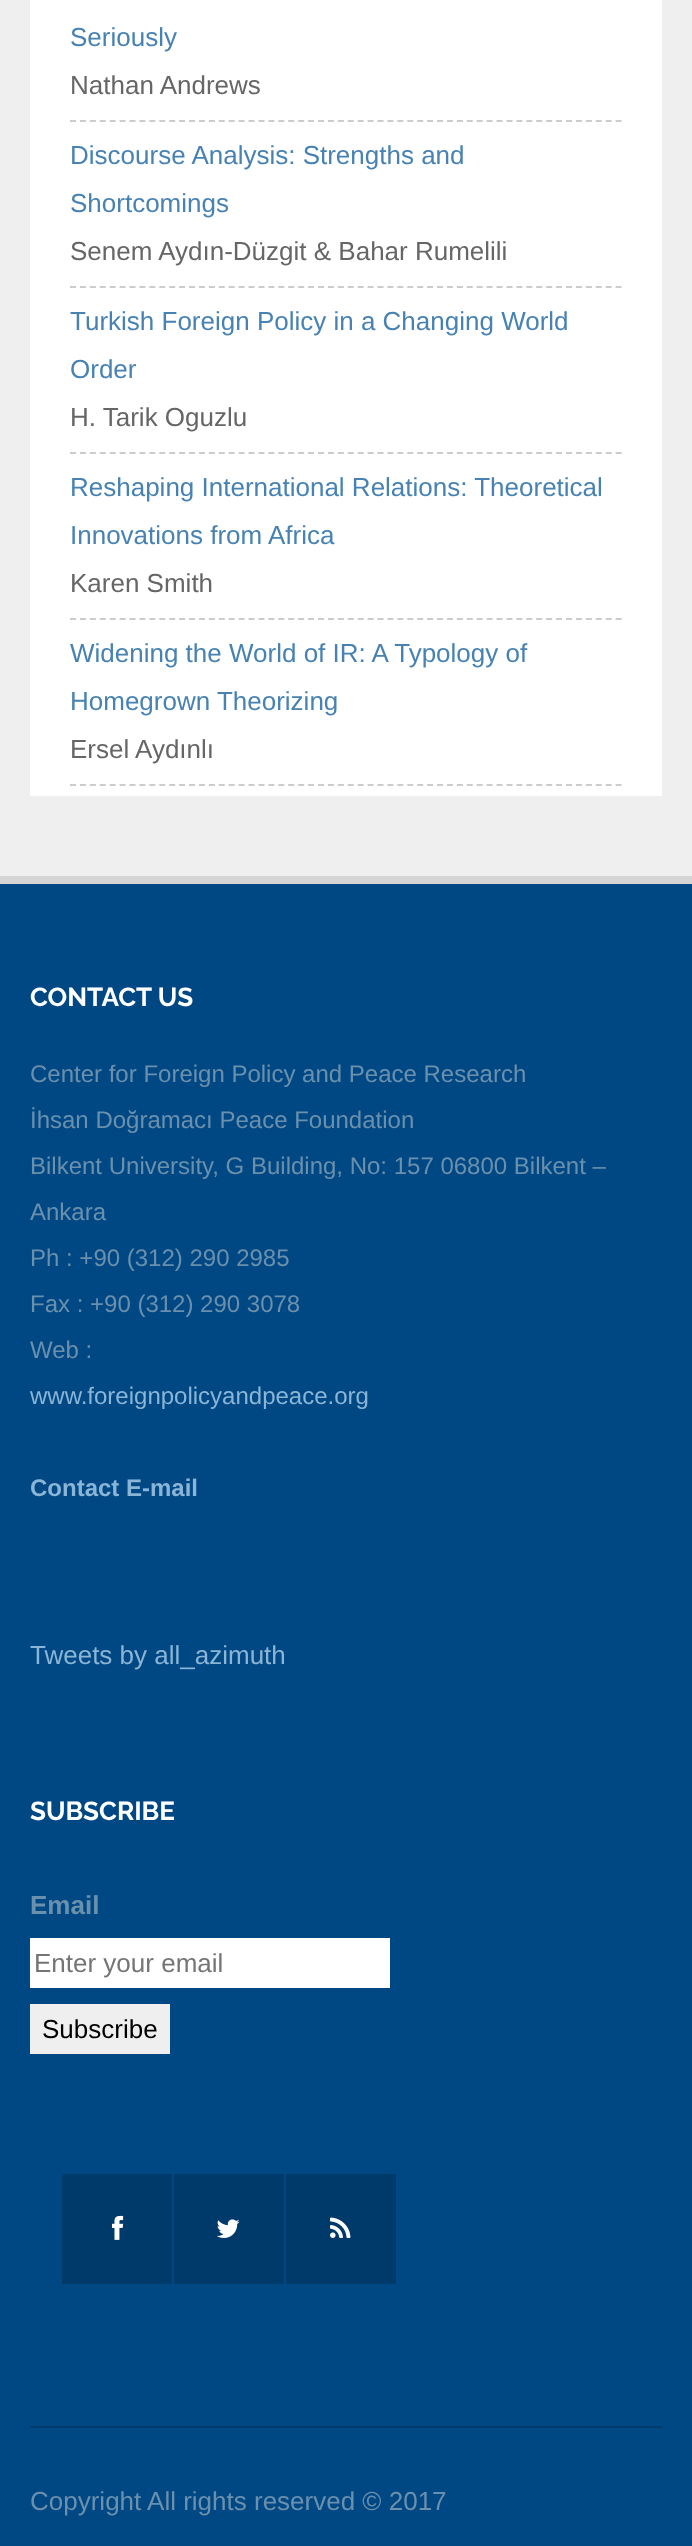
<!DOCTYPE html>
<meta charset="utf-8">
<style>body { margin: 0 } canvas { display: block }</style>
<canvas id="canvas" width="692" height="2546"></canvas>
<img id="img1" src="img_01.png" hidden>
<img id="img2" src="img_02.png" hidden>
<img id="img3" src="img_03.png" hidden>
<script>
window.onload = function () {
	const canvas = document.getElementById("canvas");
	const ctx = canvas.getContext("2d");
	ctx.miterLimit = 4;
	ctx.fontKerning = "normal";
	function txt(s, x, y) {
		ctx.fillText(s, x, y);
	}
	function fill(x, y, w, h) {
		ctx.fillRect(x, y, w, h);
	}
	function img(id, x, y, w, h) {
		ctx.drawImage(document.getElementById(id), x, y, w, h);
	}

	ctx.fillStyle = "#EFEFEF";
	fill(0, 0, 692, 2546);
	ctx.fillStyle = "#FFFFFF";
	fill(30, 0, 632, 796);
	ctx.beginPath();
	ctx.moveTo(70, 121);
	ctx.lineTo(622, 121);
	ctx.strokeStyle = "#CCCCCC";
	ctx.lineWidth = 2;
	ctx.setLineDash([6, 3.92]);
	ctx.stroke();
	ctx.beginPath();
	ctx.moveTo(70, 287);
	ctx.lineTo(622, 287);
	ctx.stroke();
	ctx.beginPath();
	ctx.moveTo(70, 453);
	ctx.lineTo(622, 453);
	ctx.stroke();
	ctx.beginPath();
	ctx.moveTo(70, 619);
	ctx.lineTo(622, 619);
	ctx.stroke();
	ctx.beginPath();
	ctx.moveTo(70, 785);
	ctx.lineTo(622, 785);
	ctx.stroke();
	ctx.fillStyle = "#004884";
	fill(0, 884, 692, 1662);
	ctx.fillStyle = "#D5D5D5";
	fill(0, 876, 692, 8);
	ctx.fillStyle = "#FFFFFF";
	fill(30, 1938, 360, 50);
	ctx.fillStyle = "#EFEFEF";
	fill(30, 2004, 140, 50);
	ctx.fillStyle = "#003A6A";
	fill(62, 2174, 110, 110);
	img("img1", 112, 2215, 12, 25);
	fill(174, 2174, 110, 110);
	img("img2", 216, 2219, 24, 19);
	fill(286, 2174, 110, 110);
	img("img3", 330, 2217, 21, 21);
	fill(30, 2426, 632, 2);
	ctx.font = "26px Liberation Sans";
	ctx.fillStyle = "#4782B2";
	txt("Seriously", 70, 46);
	ctx.fillStyle = "#666666";
	txt("Nathan Andrews", 70, 94);
	ctx.fillStyle = "#4782B2";
	txt("Discourse Analysis: Strengths and", 70, 164);
	txt("Shortcomings", 70, 212);
	ctx.fillStyle = "#666666";
	txt("Senem Aydın-Düzgit & Bahar Rumelili", 70, 260);
	ctx.fillStyle = "#4782B2";
	txt("Turkish Foreign Policy in a Changing World", 70, 330);
	txt("Order", 70, 378);
	ctx.fillStyle = "#666666";
	txt("H. Tarik Oguzlu", 70, 426);
	ctx.fillStyle = "#4782B2";
	txt("Reshaping International Relations: Theoretical", 70, 496);
	txt("Innovations from Africa", 70, 544);
	ctx.fillStyle = "#666666";
	txt("Karen Smith", 70, 592);
	ctx.fillStyle = "#4782B2";
	txt("Widening the World of IR: A Typology of", 70, 662);
	txt("Homegrown Theorizing", 70, 710);
	ctx.fillStyle = "#666666";
	txt("Ersel Aydınlı", 70, 758);
	ctx.font = "bold 26px Raleway";
	ctx.fillStyle = "#FFFFFF";
	txt("CONTACT US", 30, 1006);
	ctx.font = "24px Liberation Sans";
	ctx.fillStyle = "#6B90AD";
	txt("Center for Foreign Policy and Peace Research", 30, 1082);
	txt("İhsan Doğramacı Peace Foundation", 30, 1128);
	txt("Bilkent University, G Building, No: 157 06800 Bilkent –", 30, 1174);
	txt("Ankara", 30, 1220);
	txt("Ph : +90 (312) 290 2985", 30, 1266);
	txt("Fax : +90 (312) 290 3078", 30, 1312);
	txt("Web :", 30, 1358);
	ctx.fillStyle = "#8AB5D6";
	txt("www.foreignpolicyandpeace.org", 30, 1404);
	ctx.font = "bold 24px Liberation Sans";
	txt("Contact E-mail", 30, 1496);
	ctx.font = "26px Liberation Sans";
	txt("Tweets by all_azimuth", 30, 1664);
	ctx.font = "bold 26px Raleway";
	ctx.fillStyle = "#FFFFFF";
	txt("SUBSCRIBE", 30, 1820);
	ctx.font = "bold 26px Liberation Sans";
	ctx.fillStyle = "#6B90AD";
	txt("Email", 30, 1914);
	ctx.font = "26px Liberation Sans";
	ctx.fillStyle = "#757575";
	txt("Enter your email", 34, 1972);
	ctx.fillStyle = "#000000";
	txt("Subscribe", 42, 2038);
	ctx.fillStyle = "#6B90AD";
	txt("Copyright All rights reserved © 2017", 30, 2510);
};
</script>
